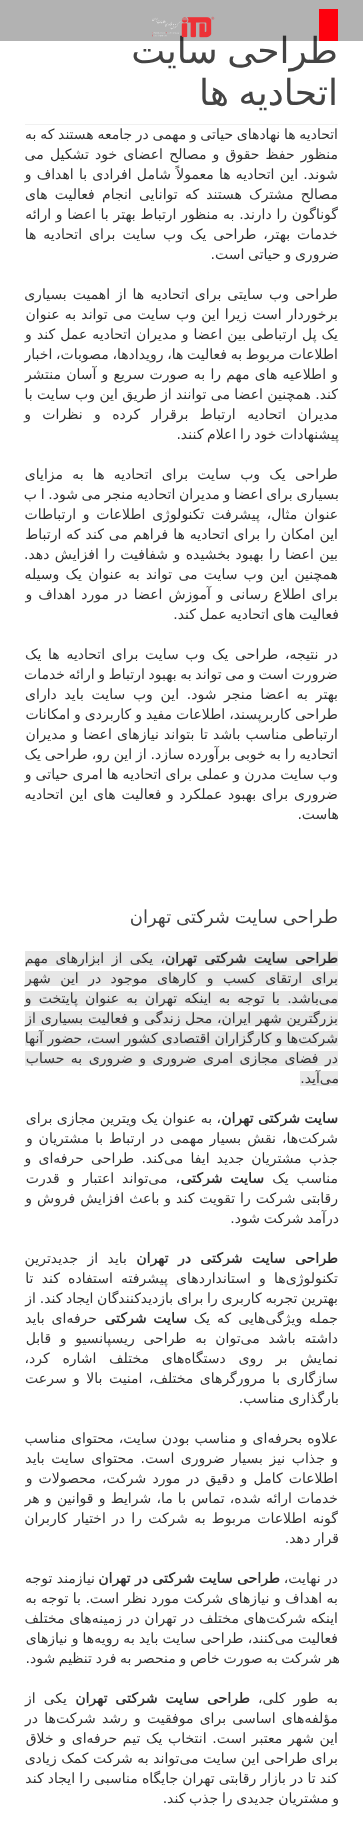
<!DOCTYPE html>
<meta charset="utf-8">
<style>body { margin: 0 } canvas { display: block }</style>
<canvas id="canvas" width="363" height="1846"></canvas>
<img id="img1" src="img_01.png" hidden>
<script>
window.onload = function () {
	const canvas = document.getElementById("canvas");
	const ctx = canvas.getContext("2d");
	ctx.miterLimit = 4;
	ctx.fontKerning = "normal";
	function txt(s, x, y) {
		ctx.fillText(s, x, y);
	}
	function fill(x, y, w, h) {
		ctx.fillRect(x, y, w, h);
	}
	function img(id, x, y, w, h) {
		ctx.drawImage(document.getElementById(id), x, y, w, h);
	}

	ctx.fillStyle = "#FFFFFF";
	fill(0, 0, 363, 1846);
	ctx.fillStyle = "#F0F0F0";
	fill(25, 124, 313, 1);
	ctx.fillStyle = "#E6E6E6";
	fill(25, 951, 313, 15);
	fill(25, 971, 313, 15);
	fill(25, 991, 313, 15);
	fill(25, 1011, 313, 15);
	fill(25, 1031, 313, 15);
	fill(25, 1051, 313, 15);
	fill(300, 1071, 38, 15);
	ctx.wordSpacing = "-2px";
	ctx.direction = "rtl";
	ctx.font = "36px DejaVu Sans";
	ctx.fillStyle = "#444444";
	txt("طراحی سایت", 338, 63);
	ctx.fillStyle = "rgba(0, 0, 0, 0.3)";
	fill(0, 0, 363, 41);
	img("img1", 152, 16, 63, 22);
	ctx.fillStyle = "#FE000D";
	fill(319, 9, 19, 32);
	ctx.fillStyle = "#444444";
	txt("اتحادیه ها", 338, 105);
	ctx.wordSpacing = "-0.75px";
	ctx.font = "14px DejaVu Sans";
	ctx.fillStyle = "#333333";
	txt("اتحادیه ها نهادهای حیاتی و مهمی در جامعه هستند که به", 338, 139);
	ctx.wordSpacing = "1.75px";
	txt("منظور حفظ حقوق و مصالح اعضای خود تشکیل می", 338, 159);
	ctx.wordSpacing = "0.75px";
	txt("شوند. این اتحادیه ها معمولاً شامل افرادی با اهداف و", 338, 179);
	ctx.wordSpacing = "2.75px";
	txt("مصالح مشترک هستند که توانایی انجام فعالیت های", 338, 199);
	ctx.wordSpacing = "0.25px";
	txt("گوناگون را دارند. به منظور ارتباط بهتر با اعضا و ارائه", 338, 219);
	ctx.wordSpacing = "2.5px";
	txt("خدمات بهتر، طراحی یک وب سایت برای اتحادیه ها", 338, 239);
	ctx.wordSpacing = "-0.75px";
	txt("ضروری و حیاتی است.", 339, 259);
	ctx.wordSpacing = "1.5px";
	txt("طراحی وب سایتی برای اتحادیه ها از اهمیت بسیاری", 338, 299);
	ctx.wordSpacing = "0.75px";
	txt("برخوردار است زیرا این وب سایت می تواند به عنوان", 338, 319);
	ctx.wordSpacing = "0.6px";
	txt("یک پل ارتباطی بین اعضا و مدیران اتحادیه عمل کند و", 338, 339);
	ctx.wordSpacing = "-0.75px";
	txt("اطلاعات مربوط به فعالیت ها، رویدادها، مصوبات، اخبار", 338, 359);
	ctx.wordSpacing = "0.75px";
	txt("و اطلاعیه های مهم را به صورت سریع و آسان منتشر", 338, 379);
	ctx.wordSpacing = "-0.1px";
	txt("کند. همچنین اعضا می توانند از طریق این وب سایت با", 338, 399);
	ctx.wordSpacing = "7px";
	txt("مدیران اتحادیه ارتباط برقرار کرده و نظرات و", 338, 419);
	ctx.wordSpacing = "-0.75px";
	txt("پیشنهادات خود را اعلام کنند.", 339, 439);
	ctx.wordSpacing = "4.75px";
	txt("طراحی یک وب سایت برای اتحادیه ها به مزایای", 338, 479);
	ctx.wordSpacing = "-0.75px";
	txt("بسیاری برای اعضا و مدیران اتحادیه منجر می شود. ا ب", 339, 499);
	ctx.wordSpacing = "2.25px";
	txt("عنوان مثال، پیشرفت تکنولوژی اطلاعات و ارتباطات", 338, 519);
	ctx.wordSpacing = "0.6px";
	txt("این امکان را برای اتحادیه ها فراهم می کند که ارتباط", 338, 539);
	ctx.wordSpacing = "1px";
	txt("بین اعضا را بهبود بخشیده و شفافیت را افزایش دهد.", 338, 559);
	ctx.wordSpacing = "1.75px";
	txt("همچنین این وب سایت می تواند به عنوان یک وسیله", 338, 579);
	ctx.wordSpacing = "1.5px";
	txt("برای اطلاع رسانی و آموزش اعضا در مورد اهداف و", 338, 599);
	ctx.wordSpacing = "-0.75px";
	txt("فعالیت های اتحادیه عمل کند.", 339, 619);
	ctx.wordSpacing = "2.25px";
	txt("در نتیجه، طراحی یک وب سایت برای اتحادیه ها یک", 338, 659);
	ctx.wordSpacing = "-0.75px";
	txt("ضرورت است و می تواند به بهبود ارتباط و ارائه خدمات", 338, 679);
	ctx.wordSpacing = "3.25px";
	txt("بهتر به اعضا منجر شود. این وب سایت باید دارای", 338, 699);
	ctx.wordSpacing = "-0.5px";
	txt("طراحی کاربرپسند، اطلاعات مفید و کاربردی و امکانات", 338, 719);
	ctx.wordSpacing = "0.75px";
	txt("ارتباطی مناسب باشد تا بتواند نیازهای اعضا و مدیران", 338, 739);
	ctx.wordSpacing = "-0.6px";
	txt("اتحادیه را به خوبی برآورده سازد. از این رو، طراحی یک", 338, 759);
	ctx.wordSpacing = "-0.25px";
	txt("وب سایت مدرن و عملی برای اتحادیه ها امری حیاتی و", 338, 779);
	ctx.wordSpacing = "1.25px";
	txt("ضروری برای بهبود عملکرد و فعالیت های این اتحادیه", 338, 799);
	ctx.wordSpacing = "0px";
	txt("هاست.", 339, 819);
	ctx.wordSpacing = "-1px";
	ctx.font = "18px DejaVu Sans";
	ctx.fillStyle = "#444444";
	txt("طراحی سایت شرکتی تهران", 338, 923);
	ctx.wordSpacing = "3px";
	ctx.font = "bold 14px DejaVu Sans";
	ctx.fillStyle = "#333333";
	txt("طراحی سایت شرکتی تهران", 338, 963);
	ctx.font = "14px DejaVu Sans";
	txt("، یکی از ابزارهای مهم", 165, 963);
	ctx.wordSpacing = "5px";
	txt("برای ارتقای کسب و کارهای موجود در این شهر", 338, 983);
	ctx.wordSpacing = "2.75px";
	txt("می‌باشد. با توجه به اینکه تهران به عنوان پایتخت و", 338, 1003);
	ctx.wordSpacing = "0.25px";
	txt("بزرگترین شهر ایران، محل زندگی و فعالیت بسیاری از", 338, 1023);
	ctx.wordSpacing = "-0.25px";
	txt("شرکت‌ها و کارگزاران اقتصادی کشور است، حضور آنها", 338, 1043);
	ctx.wordSpacing = "2px";
	txt("در فضای مجازی امری ضروری و ضروری به حساب", 338, 1063);
	ctx.wordSpacing = "0px";
	txt("می‌آید.", 339, 1083);
	ctx.font = "bold 14px DejaVu Sans";
	txt("سایت شرکتی تهران", 338, 1123);
	ctx.font = "14px DejaVu Sans";
	txt("، به عنوان یک ویترین مجازی برای", 221, 1123);
	ctx.wordSpacing = "1.5px";
	txt("شرکت‌ها، نقش بسیار مهمی در ارتباط با مشتریان و", 338, 1143);
	ctx.wordSpacing = "2.75px";
	txt("جذب مشتریان جدید ایفا می‌کند. طراحی حرفه‌ای و", 338, 1163);
	ctx.wordSpacing = "3.5px";
	txt("مناسب یک", 338, 1183);
	ctx.font = "bold 14px DejaVu Sans";
	txt("سایت شرکتی", 264, 1183);
	ctx.font = "14px DejaVu Sans";
	txt("، می‌تواند اعتبار و قدرت", 180, 1183);
	ctx.wordSpacing = "0.5px";
	txt("رقابتی شرکت را تقویت کند و باعث افزایش فروش و", 338, 1203);
	ctx.wordSpacing = "-0.75px";
	txt("درآمد شرکت شود.", 339, 1223);
	ctx.wordSpacing = "5px";
	ctx.font = "bold 14px DejaVu Sans";
	txt("طراحی سایت شرکتی در تهران", 338, 1263);
	ctx.font = "14px DejaVu Sans";
	txt("باید از جدیدترین", 127, 1263);
	ctx.wordSpacing = "3.75px";
	txt("تکنولوژی‌ها و استانداردهای پیشرفته استفاده کند تا", 338, 1283);
	ctx.wordSpacing = "-0.75px";
	txt("بهترین تجربه کاربری را برای بازدیدکنندگان ایجاد کند. از", 338, 1303);
	ctx.wordSpacing = "2.5px";
	txt("جمله ویژگی‌هایی که یک", 338, 1323);
	ctx.font = "bold 14px DejaVu Sans";
	txt("سایت شرکتی", 187, 1323);
	ctx.font = "14px DejaVu Sans";
	txt("حرفه‌ای باید", 97, 1323);
	ctx.wordSpacing = "4.25px";
	txt("داشته باشد می‌توان به طراحی ریسپانسیو و قابل", 338, 1343);
	ctx.wordSpacing = "8.25px";
	txt("نمایش بر روی دستگاه‌های مختلف اشاره کرد،", 338, 1363);
	ctx.wordSpacing = "2px";
	txt("سازگاری با مرورگرهای مختلف، امنیت بالا و سرعت", 338, 1383);
	ctx.wordSpacing = "-0.75px";
	txt("بارگذاری مناسب.", 339, 1403);
	ctx.wordSpacing = "0.5px";
	txt("علاوه بحرفه‌ای و مناسب بودن سایت، محتوای مناسب", 338, 1443);
	ctx.wordSpacing = "2px";
	txt("و جذاب نیز بسیار ضروری است. محتوای سایت باید", 338, 1463);
	ctx.wordSpacing = "1.75px";
	txt("اطلاعات کامل و دقیق در مورد شرکت، محصولات و", 338, 1483);
	ctx.wordSpacing = "0.75px";
	txt("خدمات ارائه شده، تماس با ما، شرایط و قوانین و هر", 338, 1503);
	ctx.wordSpacing = "1.75px";
	txt("گونه اطلاعات مربوط به شرکت را در اختیار کاربران", 338, 1523);
	ctx.wordSpacing = "-0.75px";
	txt("قرار دهد.", 339, 1543);
	ctx.wordSpacing = "0px";
	txt("در نهایت،", 338, 1583);
	ctx.font = "bold 14px DejaVu Sans";
	txt("طراحی سایت شرکتی در تهران", 280, 1583);
	ctx.font = "14px DejaVu Sans";
	txt("نیازمند توجه", 95, 1583);
	txt("به اهداف و نیازهای شرکت مورد نظر است. با توجه به", 338, 1603);
	ctx.wordSpacing = "0.25px";
	txt("اینکه شرکت‌های مختلف در تهران در زمینه‌های مختلف", 338, 1623);
	ctx.wordSpacing = "-0.25px";
	txt("فعالیت می‌کنند، طراحی سایت باید به رویه‌ها و نیازهای", 338, 1643);
	ctx.wordSpacing = "-0.75px";
	txt("هر شرکت به صورت خاص و منحصر به فرد تنظیم شود.", 340, 1663);
	ctx.wordSpacing = "3.5px";
	txt("به طور کلی،", 338, 1703);
	ctx.font = "bold 14px DejaVu Sans";
	txt("طراحی سایت شرکتی تهران", 250, 1703);
	ctx.font = "14px DejaVu Sans";
	txt("یکی از", 67, 1703);
	ctx.wordSpacing = "1.75px";
	txt("مؤلفه‌های اساسی برای موفقیت و رشد شرکت‌ها در", 338, 1723);
	ctx.wordSpacing = "1.25px";
	txt("این شهر معتبر است. انتخاب یک تیم حرفه‌ای و خلاق", 338, 1743);
	ctx.wordSpacing = "0px";
	txt("برای طراحی این سایت می‌تواند به شرکت کمک زیادی", 338, 1763);
	ctx.wordSpacing = "-0.25px";
	txt("کند تا در بازار رقابتی تهران جایگاه مناسبی را ایجاد کند", 338, 1783);
	ctx.wordSpacing = "-0.75px";
	txt("و مشتریان جدیدی را جذب کند.", 339, 1803);
};
</script>
